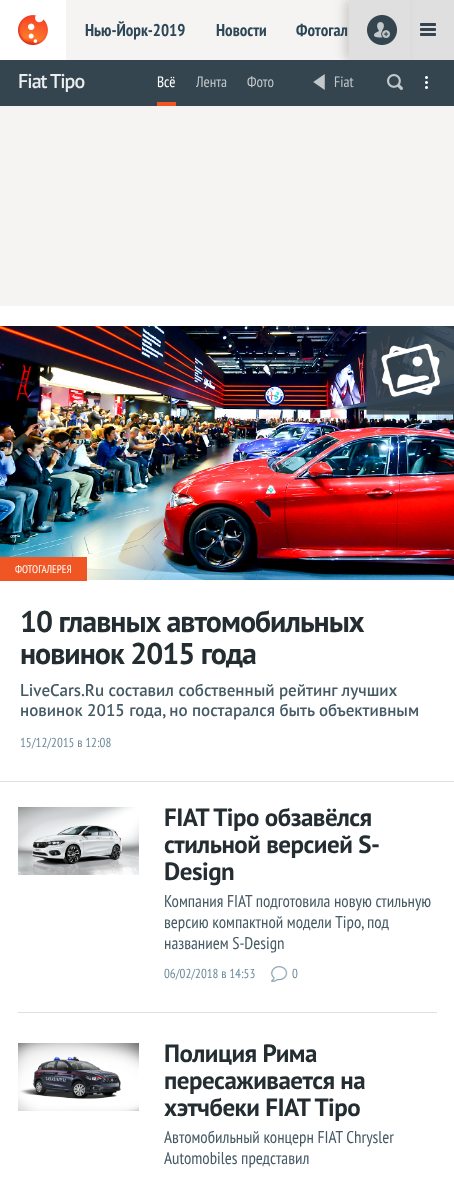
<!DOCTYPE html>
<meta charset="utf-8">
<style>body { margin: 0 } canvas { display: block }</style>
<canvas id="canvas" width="454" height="1181"></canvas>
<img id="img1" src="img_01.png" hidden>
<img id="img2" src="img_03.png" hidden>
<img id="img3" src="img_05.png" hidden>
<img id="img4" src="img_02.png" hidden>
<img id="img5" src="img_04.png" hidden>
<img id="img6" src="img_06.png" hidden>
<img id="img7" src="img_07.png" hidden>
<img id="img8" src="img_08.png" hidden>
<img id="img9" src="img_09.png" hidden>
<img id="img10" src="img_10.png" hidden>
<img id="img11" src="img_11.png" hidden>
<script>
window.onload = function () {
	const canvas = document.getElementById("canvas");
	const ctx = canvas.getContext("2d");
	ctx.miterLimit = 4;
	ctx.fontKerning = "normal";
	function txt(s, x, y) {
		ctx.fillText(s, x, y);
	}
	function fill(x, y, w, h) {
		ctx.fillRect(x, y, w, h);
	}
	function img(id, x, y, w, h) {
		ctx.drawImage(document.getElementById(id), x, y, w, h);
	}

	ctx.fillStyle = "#FFFFFF";
	fill(0, 0, 454, 1181);
	ctx.fillStyle = "#DFDFDF";
	fill(349, 0, 105, 60);
	img("img1", 18, 15, 30, 30);
	ctx.fillStyle = "#F5F4F3";
	fill(66, 0, 283, 60);
	img("img2", 420, 23, 16, 13);
	ctx.fillStyle = "#35454F";
	fill(0, 60, 454, 46);
	img("img3", 387, 74, 16, 16);
	ctx.save();
	ctx.beginPath();
	ctx.rect(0, 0, 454, 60);
	ctx.clip();
	ctx.beginPath();
	ctx.moveTo(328, 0);
	ctx.lineTo(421, 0);
	ctx.lineTo(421, 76);
	ctx.lineTo(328, 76);
	ctx.closePath();
	ctx.moveTo(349, 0);
	ctx.lineTo(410, 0);
	ctx.lineTo(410, 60);
	ctx.lineTo(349, 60);
	ctx.closePath();
	ctx.clip("evenodd");
	ctx.fillStyle = "rgba(0, 0, 0, 0.15)";
	ctx.filter = "blur(5px)";
	ctx.beginPath();
	ctx.rect(344, 0, 61, 60);
	ctx.fill();
	ctx.filter = "none";
	ctx.restore();
	img("img4", 367, 15, 30, 30);
	ctx.fillStyle = "#EF5624";
	fill(157, 102, 19, 4);
	img("img5", 313, 74, 12, 16);
	img("img6", 425, 76, 3, 13);
	ctx.fillStyle = "#F5F4F3";
	fill(0, 106, 454, 200);
	ctx.fillStyle = "#DAE1E4";
	fill(0, 781, 454, 1);
	img("img7", 0, 326, 454, 254);
	img("img8", 366, 326, 88, 89);
	ctx.fillStyle = "#EF5624";
	fill(0, 557, 87, 24);
	ctx.fillStyle = "#DAE1E4";
	fill(18, 1012, 419, 1);
	img("img9", 18, 807, 121, 68);
	img("img10", 271, 966, 17, 16);
	img("img11", 18, 1043, 121, 68);
	ctx.font = "bold 17px PT Sans Narrow";
	ctx.fillStyle = "#2D4756";
	txt("Нью-Йорк-2019", 85, 36);
	txt("Новости", 216, 36);
	txt("Фотогал", 296, 36);
	ctx.letterSpacing = "-1px";
	ctx.font = "600 20px PT Sans";
	ctx.fillStyle = "#EBEDEE";
	txt("Fiat Tipo", 18, 88);
	ctx.letterSpacing = "0px";
	ctx.font = "15px PT Sans Narrow";
	ctx.fillStyle = "#FFFFFF";
	txt("Всё", 157, 87);
	ctx.fillStyle = "#C3C8CB";
	txt("Лента", 196, 87);
	txt("Фото", 247, 87);
	txt("Fiat", 334, 87);
	ctx.font = "11px PT Sans Narrow";
	ctx.fillStyle = "#FFFFFF";
	txt("ФОТОГАЛЕРЕЯ", 15, 573);
	ctx.letterSpacing = "-1px";
	ctx.font = "bold 30px PT Sans";
	ctx.fillStyle = "#242D31";
	txt("10 главных автомобильных", 20, 632);
	txt("новинок 2015 года", 20, 664);
	ctx.letterSpacing = "0px";
	ctx.font = "600 17px PT Sans";
	ctx.fillStyle = "#455A64";
	txt("LiveCars.Ru составил собственный рейтинг лучших", 20, 696);
	txt("новинок 2015 года, но постарался быть объективным", 20, 716);
	ctx.font = "13px PT Sans Narrow";
	ctx.fillStyle = "#6D8C9C";
	txt("15/12/2015 в 12:08", 20, 747);
	ctx.letterSpacing = "-0.5px";
	ctx.font = "bold 25px PT Sans";
	ctx.fillStyle = "#242D31";
	txt("FIAT Tipo обзавёлся", 164, 826);
	txt("стильной версией S-", 164, 853);
	txt("Design", 164, 880);
	ctx.letterSpacing = "0px";
	ctx.font = "17px PT Sans Narrow";
	ctx.fillStyle = "#455A64";
	txt("Компания FIAT подготовила новую стильную", 164, 907);
	txt("версию компактной модели Tipo, под", 164, 928);
	txt("названием S-Design", 164, 949);
	ctx.font = "13px PT Sans Narrow";
	ctx.fillStyle = "#6D8C9C";
	txt("06/02/2018 в 14:53", 164, 978);
	txt("0", 292, 978);
	ctx.letterSpacing = "-0.5px";
	ctx.font = "bold 25px PT Sans";
	ctx.fillStyle = "#242D31";
	txt("Полиция Рима", 164, 1062);
	txt("пересаживается на", 164, 1089);
	txt("хэтчбеки FIAT Tipo", 164, 1116);
	ctx.letterSpacing = "0px";
	ctx.font = "17px PT Sans Narrow";
	ctx.fillStyle = "#455A64";
	txt("Автомобильный концерн FIAT Chrysler", 164, 1143);
	txt("Automobiles представил", 164, 1164);
};
</script>
